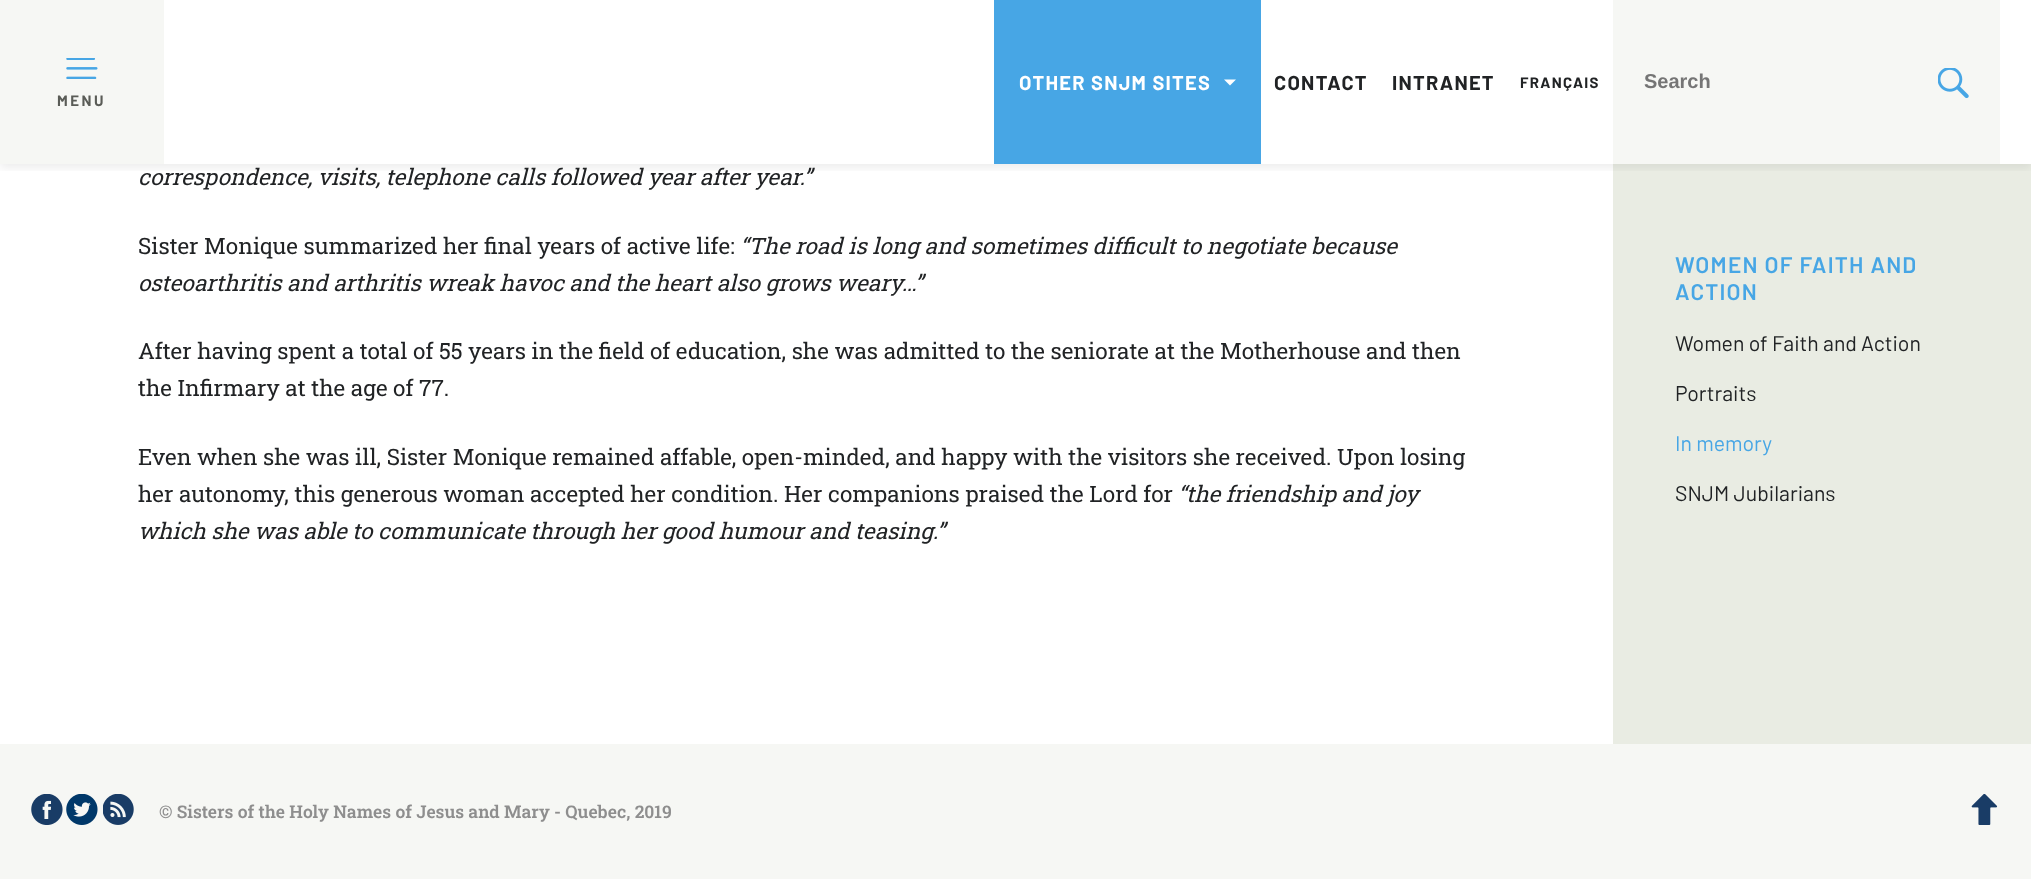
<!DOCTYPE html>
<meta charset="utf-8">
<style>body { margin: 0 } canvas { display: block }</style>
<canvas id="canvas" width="2031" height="879"></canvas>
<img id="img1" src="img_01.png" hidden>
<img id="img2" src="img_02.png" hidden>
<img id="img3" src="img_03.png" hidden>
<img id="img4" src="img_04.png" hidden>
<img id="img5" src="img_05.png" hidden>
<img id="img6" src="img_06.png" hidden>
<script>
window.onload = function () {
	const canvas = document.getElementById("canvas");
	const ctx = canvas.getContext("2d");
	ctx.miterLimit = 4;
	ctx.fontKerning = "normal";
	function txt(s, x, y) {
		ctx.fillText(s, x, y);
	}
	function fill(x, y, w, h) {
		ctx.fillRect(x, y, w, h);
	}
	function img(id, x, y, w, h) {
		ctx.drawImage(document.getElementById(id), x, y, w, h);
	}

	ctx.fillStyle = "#FFFFFF";
	fill(0, 0, 2031, 879);
	ctx.fillStyle = "#E9ECE3";
	fill(1613, 164, 418, 580);
	ctx.save();
	ctx.beginPath();
	ctx.rect(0, 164, 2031, 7);
	ctx.clip();
	ctx.fillStyle = "rgba(0, 0, 0, 0.07)";
	ctx.filter = "blur(5px)";
	ctx.beginPath();
	ctx.rect(0, 4, 2031, 164);
	ctx.fill();
	ctx.filter = "none";
	ctx.restore();
	ctx.fillStyle = "#47A6E5";
	fill(994, 0, 267, 164);
	ctx.fillStyle = "#FFFFFF";
	ctx.beginPath();
	ctx.moveTo(1224, 79.5);
	ctx.lineTo(1236, 79.5);
	ctx.lineTo(1230, 85.5);
	ctx.closePath();
	ctx.fill();
	ctx.fillStyle = "#F6F7F4";
	fill(1613, 0, 387, 164);
	img("img1", 1938, 68, 31, 31);
	fill(0, 0, 164, 164);
	img("img2", 66, 58, 32, 21);
	fill(0, 744, 2031, 135);
	img("img3", 31, 794, 32, 31);
	img("img4", 66, 794, 32, 31);
	img("img5", 103, 794, 31, 31);
	img("img6", 1971, 794, 27, 31);
	ctx.letterSpacing = "1.25px";
	ctx.font = "bold 20px Barlow";
	ctx.fillStyle = "#FFFFFF";
	txt("OTHER SNJM SITES", 1019, 90);
	ctx.fillStyle = "#212325";
	txt("CONTACT", 1274, 90);
	txt("INTRANET", 1392, 90);
	ctx.font = "bold 15px Barlow";
	txt("FRANÇAIS", 1520, 88);
	ctx.letterSpacing = "0px";
	ctx.font = "bold 20px Liberation Sans";
	ctx.fillStyle = "#757575";
	txt("Search", 1644, 88);
	ctx.letterSpacing = "2.5px";
	ctx.font = "bold 15px Barlow";
	ctx.fillStyle = "#5A5C57";
	txt("MENU", 57, 106);
	ctx.letterSpacing = "0px";
	ctx.font = "italic 22.5px Roboto Slab";
	ctx.fillStyle = "#212325";
	txt("correspondence, visits, telephone calls followed year after year.”", 138, 185);
	ctx.font = "22.5px Roboto Slab";
	txt("Sister Monique summarized her final years of active life:", 138, 254);
	ctx.font = "italic 22.5px Roboto Slab";
	txt("“The road is long and sometimes difficult to negotiate because", 740, 254);
	txt("osteoarthritis and arthritis wreak havoc and the heart also grows weary…”", 138, 291);
	ctx.font = "22.5px Roboto Slab";
	txt("After having spent a total of 55 years in the field of education, she was admitted to the seniorate at the Motherhouse and then", 138, 359);
	txt("the Infirmary at the age of 77.", 138, 396);
	txt("Even when she was ill, Sister Monique remained affable, open-minded, and happy with the visitors she received. Upon losing", 138, 465);
	txt("her autonomy, this generous woman accepted her condition. Her companions praised the Lord for", 138, 502);
	ctx.font = "italic 22.5px Roboto Slab";
	txt("“the friendship and joy", 1178, 502);
	txt("which she was able to communicate through her good humour and teasing.”", 138, 539);
	ctx.letterSpacing = "1.25px";
	ctx.font = "600 22.5px Barlow";
	ctx.fillStyle = "#47A6E5";
	txt("WOMEN OF FAITH AND", 1675, 273);
	txt("ACTION", 1675, 300);
	ctx.letterSpacing = "0px";
	ctx.font = "21.25px Barlow";
	ctx.fillStyle = "#212325";
	txt("Women of Faith and Action", 1675, 351);
	txt("Portraits", 1675, 401);
	ctx.fillStyle = "#47A6E5";
	txt("In memory", 1675, 451);
	ctx.fillStyle = "#212325";
	txt("SNJM Jubilarians", 1675, 501);
	ctx.font = "600 17.5px Roboto Slab";
	ctx.fillStyle = "#8E8E8E";
	txt("© Sisters of the Holy Names of Jesus and Mary - Quebec, 2019", 159, 818);
};
</script>
